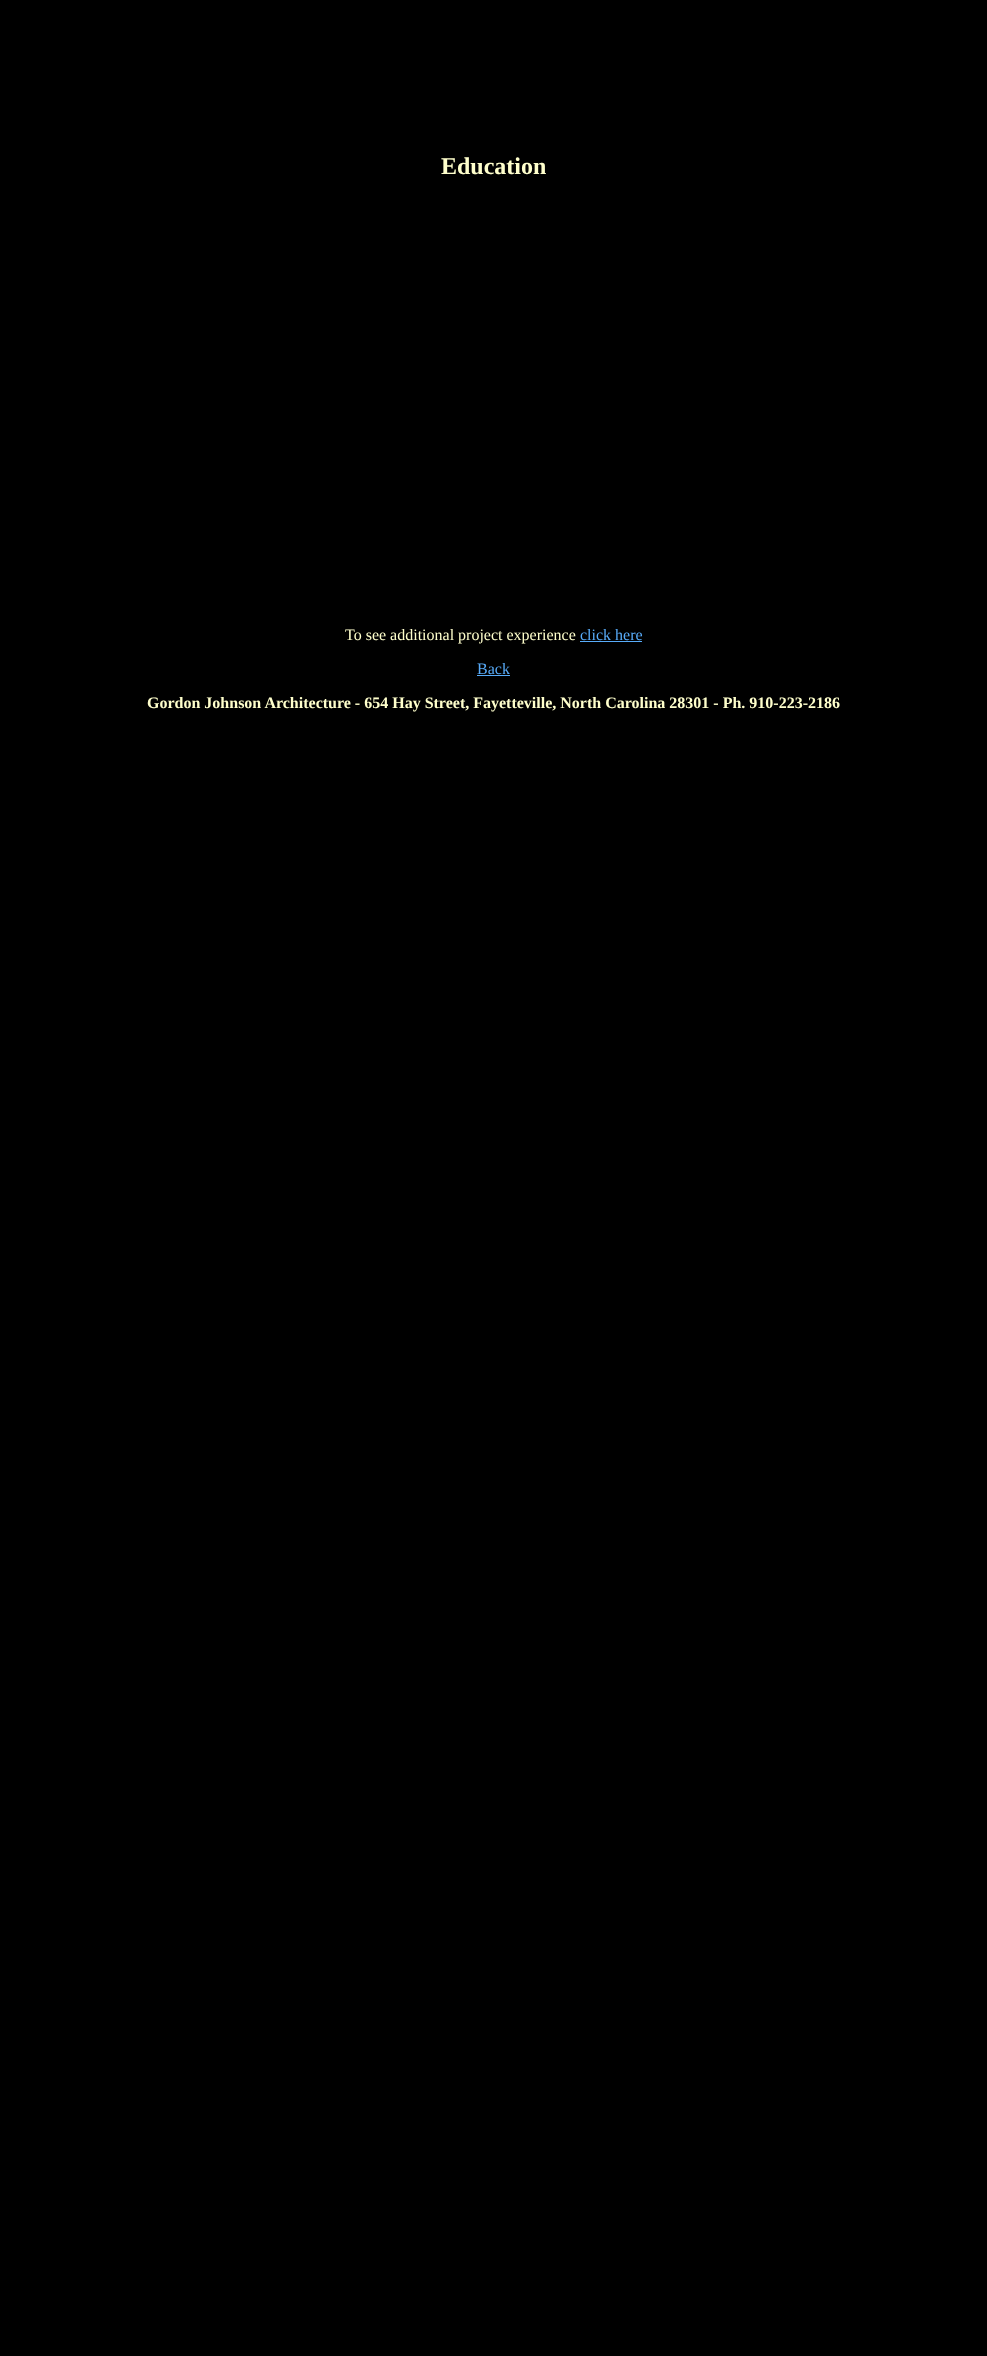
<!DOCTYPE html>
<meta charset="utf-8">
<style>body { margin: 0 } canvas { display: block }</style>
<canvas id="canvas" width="987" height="2356"></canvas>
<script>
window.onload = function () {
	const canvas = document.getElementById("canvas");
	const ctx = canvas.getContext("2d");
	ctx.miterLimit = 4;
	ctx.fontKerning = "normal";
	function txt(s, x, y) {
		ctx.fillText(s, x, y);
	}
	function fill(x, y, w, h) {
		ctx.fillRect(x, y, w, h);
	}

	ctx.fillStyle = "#000000";
	fill(0, 0, 987, 2356);
	ctx.fillStyle = "#58ACFA";
	fill(580, 641, 62, 1);
	fill(477, 675, 33, 1);
	ctx.font = "bold 24px Liberation Serif";
	ctx.fillStyle = "#FFFFCC";
	txt("Education", 441, 174);
	ctx.font = "16px Liberation Serif";
	txt("To see additional project experience", 345, 640);
	ctx.fillStyle = "#58ACFA";
	txt("click here", 580, 640);
	txt("Back", 477, 674);
	ctx.font = "bold 16px Liberation Serif";
	ctx.fillStyle = "#FFFFCC";
	txt("Gordon Johnson Architecture - 654 Hay Street, Fayetteville, North Carolina 28301 - Ph. 910-223-2186", 147, 708);
};
</script>
